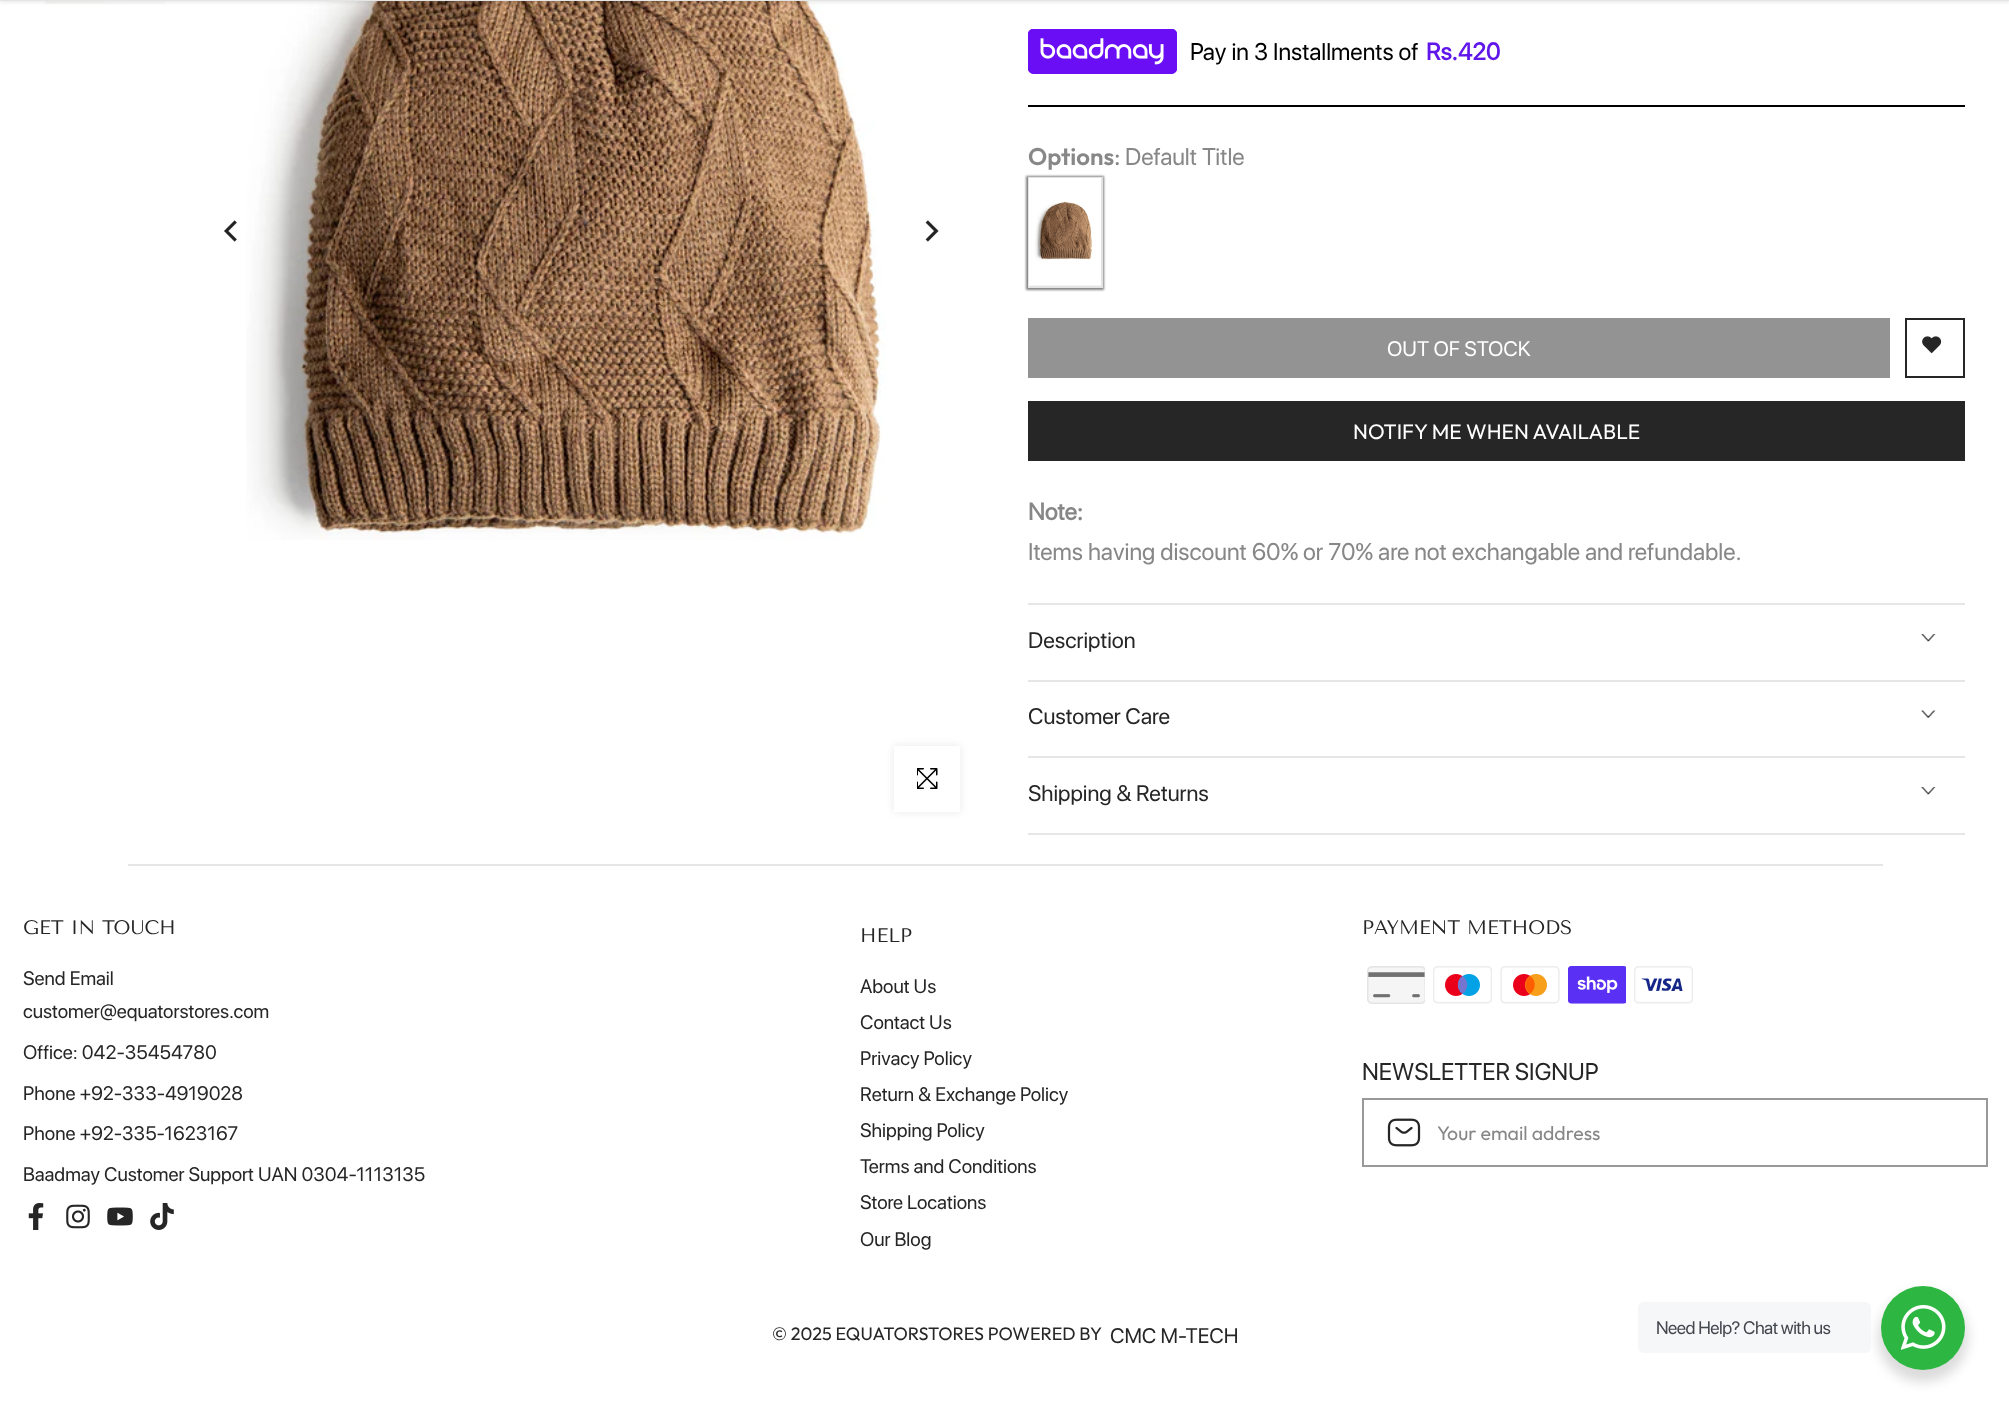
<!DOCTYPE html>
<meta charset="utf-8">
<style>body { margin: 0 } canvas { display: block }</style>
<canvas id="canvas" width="2009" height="1414"></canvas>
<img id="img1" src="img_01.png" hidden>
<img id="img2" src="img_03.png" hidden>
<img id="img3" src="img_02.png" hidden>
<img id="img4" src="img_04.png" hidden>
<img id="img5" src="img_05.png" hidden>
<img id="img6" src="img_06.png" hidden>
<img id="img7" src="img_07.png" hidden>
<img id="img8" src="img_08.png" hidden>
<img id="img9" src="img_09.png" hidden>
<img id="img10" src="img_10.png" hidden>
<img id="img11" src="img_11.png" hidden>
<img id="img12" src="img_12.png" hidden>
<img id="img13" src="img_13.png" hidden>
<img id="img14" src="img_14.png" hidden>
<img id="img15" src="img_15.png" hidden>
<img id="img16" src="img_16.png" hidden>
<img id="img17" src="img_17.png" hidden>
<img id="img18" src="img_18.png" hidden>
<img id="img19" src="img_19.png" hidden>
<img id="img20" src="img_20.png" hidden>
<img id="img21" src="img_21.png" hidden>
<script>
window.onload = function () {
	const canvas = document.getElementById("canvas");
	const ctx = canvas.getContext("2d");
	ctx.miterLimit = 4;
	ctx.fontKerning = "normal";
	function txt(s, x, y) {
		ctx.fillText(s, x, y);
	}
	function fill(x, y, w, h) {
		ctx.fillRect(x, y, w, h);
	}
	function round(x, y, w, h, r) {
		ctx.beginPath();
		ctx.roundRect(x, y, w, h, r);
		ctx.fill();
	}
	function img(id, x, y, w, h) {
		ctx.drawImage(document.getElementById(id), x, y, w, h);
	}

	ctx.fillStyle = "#FFFFFF";
	fill(0, 0, 2009, 1414);
	img("img1", 45, 1, 120, 3);
	img("img2", 246, 1, 640, 539);
	ctx.fillStyle = "rgba(0, 0, 0, 0.1)";
	ctx.filter = "blur(2px)";
	ctx.beginPath();
	ctx.rect(0, -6, 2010, 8);
	ctx.fill();
	ctx.filter = "none";
	ctx.fillStyle = "#E5E5E5";
	fill(0, 0, 2009, 1);
	img("img3", 224, 220, 13, 22);
	img("img4", 925, 220, 14, 22);
	ctx.fillStyle = "rgba(0, 0, 0, 0.09)";
	ctx.filter = "blur(4px)";
	ctx.beginPath();
	ctx.rect(894, 746, 66, 66);
	ctx.fill();
	ctx.filter = "none";
	ctx.fillStyle = "#FFFFFF";
	fill(894, 746, 66, 66);
	img("img5", 917, 768, 21, 21);
	ctx.fillStyle = "#000000";
	fill(1028, 105, 937, 2);
	img("img6", 1028, 29, 149, 45);
	ctx.fillStyle = "rgba(0, 0, 0, 0.49)";
	ctx.filter = "blur(1px)";
	ctx.beginPath();
	ctx.rect(1026, 176, 78, 114);
	ctx.fill();
	ctx.filter = "none";
	ctx.strokeStyle = "#E3E3E3";
	ctx.lineWidth = 2;
	ctx.strokeRect(1029, 178, 73, 109);
	img("img7", 1029, 178, 72, 108);
	ctx.fillStyle = "#939393";
	fill(1028, 318, 862, 60);
	ctx.strokeStyle = "#262626";
	ctx.strokeRect(1906, 319, 58, 58);
	img("img8", 1922, 336, 20, 17);
	ctx.fillStyle = "#262626";
	fill(1028, 401, 937, 60);
	ctx.fillStyle = "#E6E6E6";
	fill(1028, 603, 937, 2);
	img("img9", 1921, 634, 15, 8);
	fill(1028, 680, 937, 2);
	img("img10", 1921, 710, 15, 8);
	fill(1028, 756, 937, 2);
	fill(1028, 833, 937, 2);
	img("img9", 1921, 787, 15, 8);
	fill(128, 864, 1755, 2);
	img("img11", 28, 1203, 16, 27);
	img("img12", 66, 1204, 24, 25);
	img("img13", 107, 1207, 26, 19);
	img("img14", 150, 1203, 24, 27);
	img("img15", 1367, 966, 58, 38);
	img("img16", 1433, 966, 59, 38);
	img("img17", 1500, 966, 60, 38);
	img("img18", 1568, 966, 58, 38);
	img("img19", 1634, 966, 59, 38);
	ctx.strokeStyle = "#999999";
	ctx.strokeRect(1363, 1099, 624, 67);
	img("img20", 1387, 1118, 34, 29);
	ctx.fillStyle = "rgba(0, 0, 0, 0.14)";
	ctx.filter = "blur(6px)";
	ctx.beginPath();
	ctx.roundRect(1878, 1292, 90, 90, 45);
	ctx.fill();
	ctx.filter = "none";
	ctx.fillStyle = "#F5F7F9";
	round(1638, 1302, 233, 51, 6);
	ctx.fillStyle = "#2DB742";
	ctx.beginPath();
	ctx.arc(1923, 1328, 42, 0, Math.PI * 2);
	ctx.fill();
	img("img21", 1901, 1305, 45, 45);
	ctx.font = "24px SF Pro Display";
	ctx.fillStyle = "#000000";
	txt("Pay in 3 Installments of", 1190, 60);
	ctx.font = "bold 24px SF Pro Display";
	ctx.fillStyle = "#6016EB";
	txt("Rs.420", 1426, 60);
	ctx.font = "600 24px Outfit";
	ctx.fillStyle = "#878787";
	txt("Options", 1028, 165);
	ctx.font = "24px Outfit";
	txt(":", 1114, 165);
	ctx.font = "24px SF Pro Display";
	txt("Default Title", 1125, 165);
	ctx.font = "21px SF Pro Display";
	ctx.fillStyle = "#FFFFFF";
	txt("OUT OF STOCK", 1387, 356);
	ctx.font = "21px Outfit";
	txt("NOTIFY ME WHEN AVAILABLE", 1353, 439);
	ctx.font = "bold 24px SF Pro Display";
	ctx.fillStyle = "#878787";
	txt("Note:", 1028, 520);
	ctx.font = "24px SF Pro Display";
	txt("Items having discount 60% or 70% are not exchangable and refundable.", 1028, 560);
	ctx.font = "22.5px SF Pro Display";
	ctx.fillStyle = "#262626";
	txt("Description", 1028, 648);
	txt("Customer Care", 1028, 724);
	txt("Shipping & Returns", 1028, 801);
	ctx.font = "19.5px Tenor Sans";
	txt("GET IN TOUCH", 23, 934);
	ctx.font = "19.5px SF Pro Display";
	txt("Send Email", 23, 985);
	txt("customer@equatorstores.com", 23, 1018);
	txt("Office: 042-35454780", 23, 1059);
	txt("Phone +92-333-4919028", 23, 1100);
	txt("Phone +92-335-1623167", 23, 1140);
	txt("Baadmay Customer Support UAN 0304-1113135", 23, 1181);
	ctx.font = "19.5px Tenor Sans";
	txt("HELP", 860, 942);
	ctx.font = "19.5px SF Pro Display";
	txt("About Us", 860, 993);
	txt("Contact Us", 860, 1029);
	txt("Privacy Policy", 860, 1065);
	txt("Return & Exchange Policy", 860, 1101);
	txt("Shipping Policy", 860, 1137);
	txt("Terms and Conditions", 860, 1173);
	txt("Store Locations", 860, 1209);
	txt("Our Blog", 860, 1246);
	ctx.font = "19.5px Tenor Sans";
	txt("PAYMENT METHODS", 1362, 934);
	ctx.font = "24px SF Pro Display";
	txt("NEWSLETTER SIGNUP", 1362, 1080);
	ctx.font = "19.5px Outfit";
	ctx.fillStyle = "#878787";
	txt("Your email address", 1437, 1140);
	ctx.font = "18px Outfit";
	ctx.fillStyle = "#262626";
	txt("© 2025 EQUATORSTORES POWERED BY", 772, 1340);
	ctx.font = "21px SF Pro Display";
	txt("CMC M-TECH", 1110, 1343);
	ctx.letterSpacing = "-0.5px";
	ctx.font = "18px SF Pro Display";
	ctx.fillStyle = "#43474E";
	txt("Need Help? Chat with us", 1656, 1334);
};
</script>
